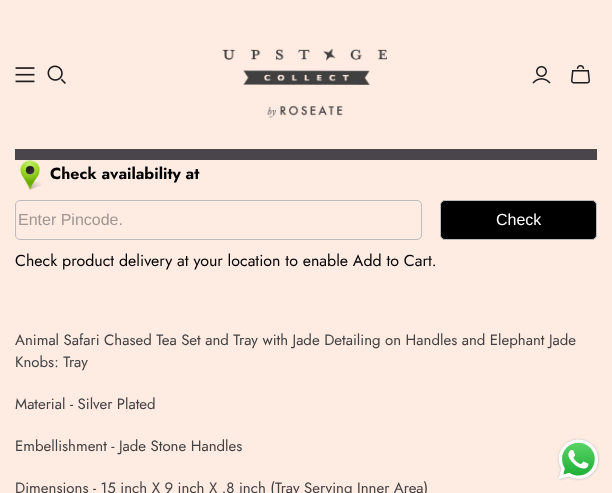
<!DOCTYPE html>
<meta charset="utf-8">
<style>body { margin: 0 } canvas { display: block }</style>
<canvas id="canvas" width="612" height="493"></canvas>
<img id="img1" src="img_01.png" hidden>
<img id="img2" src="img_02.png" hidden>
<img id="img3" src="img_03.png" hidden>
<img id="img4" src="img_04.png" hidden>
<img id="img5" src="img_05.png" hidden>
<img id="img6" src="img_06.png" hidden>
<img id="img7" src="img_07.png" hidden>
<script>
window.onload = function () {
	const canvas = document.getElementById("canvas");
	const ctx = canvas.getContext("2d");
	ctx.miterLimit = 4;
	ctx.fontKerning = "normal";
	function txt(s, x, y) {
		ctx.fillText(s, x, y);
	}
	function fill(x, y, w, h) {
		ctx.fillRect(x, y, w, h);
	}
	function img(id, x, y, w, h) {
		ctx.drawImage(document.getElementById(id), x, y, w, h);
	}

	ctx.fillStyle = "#FEEBE2";
	fill(0, 0, 612, 493);
	img("img1", 222, 48, 165, 70);
	img("img2", 15, 67, 20, 16);
	img("img3", 47, 65, 19, 19);
	img("img4", 532, 66, 19, 18);
	img("img5", 571, 65, 19, 19);
	ctx.fillStyle = "#4A454B";
	fill(15, 149, 582, 11);
	img("img6", 20, 160, 22, 30);
	ctx.beginPath();
	ctx.roundRect(15.5, 200.5, 406, 39, 4.5);
	ctx.strokeStyle = "#BBBBBB";
	ctx.stroke();
	ctx.fillStyle = "#000000";
	ctx.beginPath();
	ctx.roundRect(440.5, 200.5, 156, 39, 4.5);
	ctx.fill();
	ctx.stroke();
	img("img7", 557, 438, 43, 43);
	ctx.font = "bold 16px Jost";
	txt("Check availability at", 50, 179);
	ctx.font = "16px Liberation Sans";
	ctx.fillStyle = "#A09692";
	txt("Enter Pincode.", 18, 225);
	ctx.fillStyle = "#FFFFFF";
	txt("Check", 496, 225);
	ctx.font = "16px Jost";
	ctx.fillStyle = "#000000";
	txt("Check product delivery at your location to enable Add to Cart.", 15, 266);
	ctx.font = "15px Jost";
	ctx.fillStyle = "#414042";
	txt("Animal Safari Chased Tea Set and Tray with Jade Detailing on Handles and Elephant Jade", 15, 345);
	txt("Knobs: Tray", 15, 367);
	txt("Material - Silver Plated", 15, 409);
	txt("Embellishment - Jade Stone Handles", 15, 451);
	txt("Dimensions - 15 inch X 9 inch X .8 inch (Tray Serving Inner Area)", 15, 493);
};
</script>
